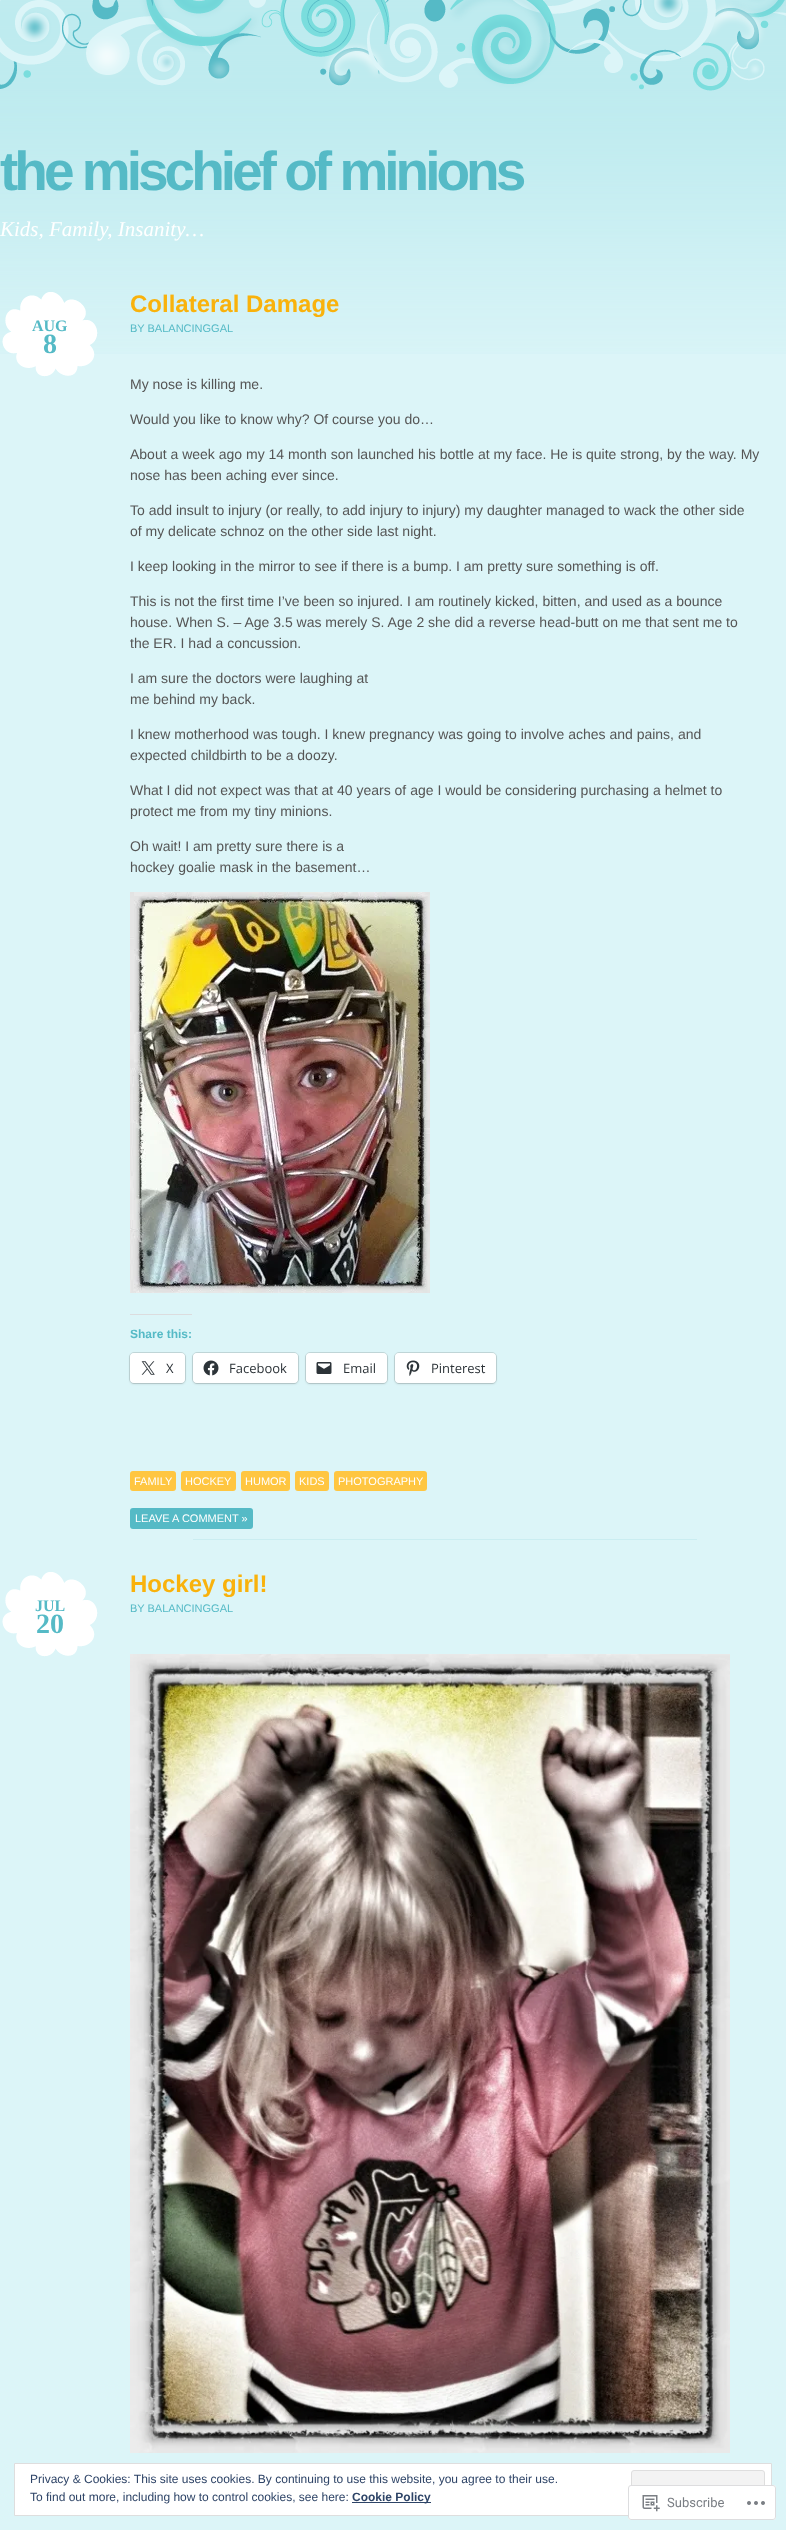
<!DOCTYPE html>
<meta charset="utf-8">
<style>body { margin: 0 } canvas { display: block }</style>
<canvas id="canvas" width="786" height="2530"></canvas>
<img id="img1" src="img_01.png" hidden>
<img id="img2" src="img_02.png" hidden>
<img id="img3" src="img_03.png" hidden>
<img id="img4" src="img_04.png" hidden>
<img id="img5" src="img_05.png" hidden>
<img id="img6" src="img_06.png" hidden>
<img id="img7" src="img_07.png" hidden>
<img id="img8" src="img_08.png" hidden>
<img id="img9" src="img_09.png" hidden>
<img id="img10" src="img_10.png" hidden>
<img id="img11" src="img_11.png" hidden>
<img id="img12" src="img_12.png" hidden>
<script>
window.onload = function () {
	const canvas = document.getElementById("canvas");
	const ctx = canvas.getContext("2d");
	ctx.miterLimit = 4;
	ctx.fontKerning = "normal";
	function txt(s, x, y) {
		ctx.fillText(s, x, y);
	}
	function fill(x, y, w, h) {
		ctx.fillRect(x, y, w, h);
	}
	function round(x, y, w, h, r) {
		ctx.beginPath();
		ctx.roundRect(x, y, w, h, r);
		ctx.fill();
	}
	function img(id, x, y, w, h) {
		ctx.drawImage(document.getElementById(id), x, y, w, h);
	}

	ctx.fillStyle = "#DCF5F8";
	fill(0, 0, 786, 2530);
	img("img1", 0, 0, 786, 354);
	img("img2", 0, 0, 786, 91);
	img("img3", 2, 292, 96, 85);
	img("img4", 130, 892, 300, 401);
	ctx.fillStyle = "#DCDCDE";
	fill(130, 1314, 62, 1);
	ctx.beginPath();
	ctx.roundRect(129.5, 1352.5, 56, 31, 4.5);
	ctx.strokeStyle = "#C2D8DA";
	ctx.stroke();
	ctx.fillStyle = "rgba(0, 0, 0, 0.12)";
	ctx.filter = "blur(1px)";
	ctx.beginPath();
	ctx.roundRect(130, 1354, 55, 30, 4);
	ctx.fill();
	ctx.filter = "none";
	ctx.fillStyle = "#FFFFFF";
	round(130, 1353, 55, 30, 4);
	img("img5", 141, 1361, 14, 14);
	ctx.beginPath();
	ctx.roundRect(192.5, 1352.5, 106, 31, 4.5);
	ctx.stroke();
	ctx.fillStyle = "rgba(0, 0, 0, 0.12)";
	ctx.filter = "blur(1px)";
	ctx.beginPath();
	ctx.roundRect(193, 1354, 105, 30, 4);
	ctx.fill();
	ctx.filter = "none";
	ctx.fillStyle = "#FFFFFF";
	round(193, 1353, 105, 30, 4);
	img("img6", 203, 1360, 16, 16);
	ctx.beginPath();
	ctx.roundRect(305.5, 1352.5, 82, 31, 4.5);
	ctx.stroke();
	ctx.fillStyle = "rgba(0, 0, 0, 0.12)";
	ctx.filter = "blur(1px)";
	ctx.beginPath();
	ctx.roundRect(306, 1354, 81, 30, 4);
	ctx.fill();
	ctx.filter = "none";
	ctx.fillStyle = "#FFFFFF";
	round(306, 1353, 81, 30, 4);
	img("img7", 316, 1362, 16, 12);
	ctx.beginPath();
	ctx.roundRect(394.5, 1352.5, 102, 31, 4.5);
	ctx.stroke();
	ctx.fillStyle = "rgba(0, 0, 0, 0.12)";
	ctx.filter = "blur(1px)";
	ctx.beginPath();
	ctx.roundRect(395, 1354, 101, 30, 4);
	ctx.fill();
	ctx.filter = "none";
	ctx.fillStyle = "#FFFFFF";
	round(395, 1353, 101, 30, 4);
	img("img8", 406, 1360, 14, 16);
	ctx.fillStyle = "#FFC641";
	round(130, 1471, 46, 20, 3);
	round(181, 1471, 55, 20, 3);
	round(241, 1471, 49, 20, 3);
	round(295, 1471, 34, 20, 3);
	round(334, 1471, 93, 20, 3);
	ctx.fillStyle = "#55BAC6";
	round(130, 1508, 123, 21, 3);
	ctx.fillStyle = "#CAEDF1";
	fill(193, 1539, 504, 1);
	img("img9", 130, 1654, 600, 799);
	img("img10", 2, 1572, 96, 85);
	ctx.fillStyle = "#FFFFFF";
	ctx.beginPath();
	ctx.rect(14.5, 2463.5, 757, 52);
	ctx.fill();
	ctx.strokeStyle = "#DEDEDE";
	ctx.stroke();
	ctx.fillStyle = "#F3F3F3";
	ctx.beginPath();
	ctx.roundRect(631.5, 2470.5, 133, 38, 2.5);
	ctx.fill();
	ctx.stroke();
	ctx.fillStyle = "#2E4467";
	fill(352, 2502, 79, 1);
	ctx.fillStyle = "rgba(255, 255, 255, 0.98)";
	round(628, 2485, 148, 35, 3);
	ctx.beginPath();
	ctx.roundRect(628.5, 2485.5, 147, 34, 2.5);
	ctx.strokeStyle = "rgba(220, 220, 222, 0.98)";
	ctx.stroke();
	img("img11", 642, 2495, 18, 17);
	img("img12", 747, 2501, 18, 4);
	ctx.letterSpacing = "-4px";
	ctx.font = "bold 55px Liberation Sans";
	ctx.fillStyle = "#55BAC6";
	txt("the mischief of minions", 0, 190);
	ctx.letterSpacing = "0px";
	ctx.font = "italic 21px Liberation Serif";
	ctx.fillStyle = "#FFFFFF";
	txt("Kids, Family, Insanity…", 0, 236);
	ctx.font = "bold 16px Liberation Serif";
	ctx.fillStyle = "#55BAC6";
	txt("AUG", 32, 331);
	ctx.font = "bold 28px Liberation Serif";
	txt("8", 43, 353);
	ctx.font = "bold 24px Liberation Sans";
	ctx.fillStyle = "#F9B20C";
	txt("Collateral Damage", 130, 312);
	ctx.font = "11px Liberation Sans";
	ctx.fillStyle = "#55BAC6";
	txt("BY BALANCINGGAL", 130, 332);
	ctx.font = "14px Liberation Sans";
	ctx.fillStyle = "#555555";
	txt("My nose is killing me.", 130, 389);
	txt("Would you like to know why? Of course you do…", 130, 424);
	txt("About a week ago my 14 month son launched his bottle at my face. He is quite strong, by the way. My", 130, 459);
	txt("nose has been aching ever since.", 130, 480);
	txt("To add insult to injury (or really, to add injury to injury) my daughter managed to wack the other side", 130, 515);
	txt("of my delicate schnoz on the other side last night.", 130, 536);
	txt("I keep looking in the mirror to see if there is a bump. I am pretty sure something is off.", 130, 571);
	txt("This is not the first time I’ve been so injured. I am routinely kicked, bitten, and used as a bounce", 130, 606);
	txt("house. When S. – Age 3.5 was merely S. Age 2 she did a reverse head-butt on me that sent me to", 130, 627);
	txt("the ER. I had a concussion.", 130, 648);
	txt("I am sure the doctors were laughing at", 130, 683);
	txt("me behind my back.", 130, 704);
	txt("I knew motherhood was tough. I knew pregnancy was going to involve aches and pains, and", 130, 739);
	txt("expected childbirth to be a doozy.", 130, 760);
	txt("What I did not expect was that at 40 years of age I would be considering purchasing a helmet to", 130, 795);
	txt("protect me from my tiny minions.", 130, 816);
	txt("Oh wait! I am pretty sure there is a", 130, 851);
	txt("hockey goalie mask in the basement…", 130, 872);
	ctx.font = "bold 12px Liberation Sans";
	ctx.fillStyle = "#55BAC6";
	txt("Share this:", 130, 1338);
	ctx.font = "13px Open Sans";
	ctx.fillStyle = "#2C3338";
	txt("X", 166, 1373);
	txt("Facebook", 229, 1373);
	txt("Email", 343, 1373);
	txt("Pinterest", 431, 1373);
	ctx.font = "11px Liberation Sans";
	ctx.fillStyle = "#FFFFFF";
	txt("FAMILY", 134, 1485);
	txt("HOCKEY", 185, 1485);
	txt("HUMOR", 245, 1485);
	txt("KIDS", 299, 1485);
	txt("PHOTOGRAPHY", 338, 1485);
	txt("LEAVE A COMMENT »", 135, 1522);
	ctx.font = "bold 24px Liberation Sans";
	ctx.fillStyle = "#F9B20C";
	txt("Hockey girl!", 130, 1592);
	ctx.font = "11px Liberation Sans";
	ctx.fillStyle = "#55BAC6";
	txt("BY BALANCINGGAL", 130, 1612);
	ctx.font = "bold 16px Liberation Serif";
	txt("JUL", 35, 1611);
	ctx.font = "bold 28px Liberation Serif";
	txt("20", 36, 1633);
	ctx.font = "12px Liberation Sans";
	ctx.fillStyle = "#2E4467";
	txt("Privacy & Cookies: This site uses cookies. By continuing to use this website, you agree to their use.", 30, 2483);
	txt("To find out more, including how to control cookies, see here:", 30, 2501);
	ctx.font = "bold 12px Liberation Sans";
	txt("Cookie Policy", 352, 2501);
	ctx.font = "13px Roboto";
	ctx.fillStyle = "#7A7E84";
	txt("Subscribe", 667, 2507);
};
</script>
